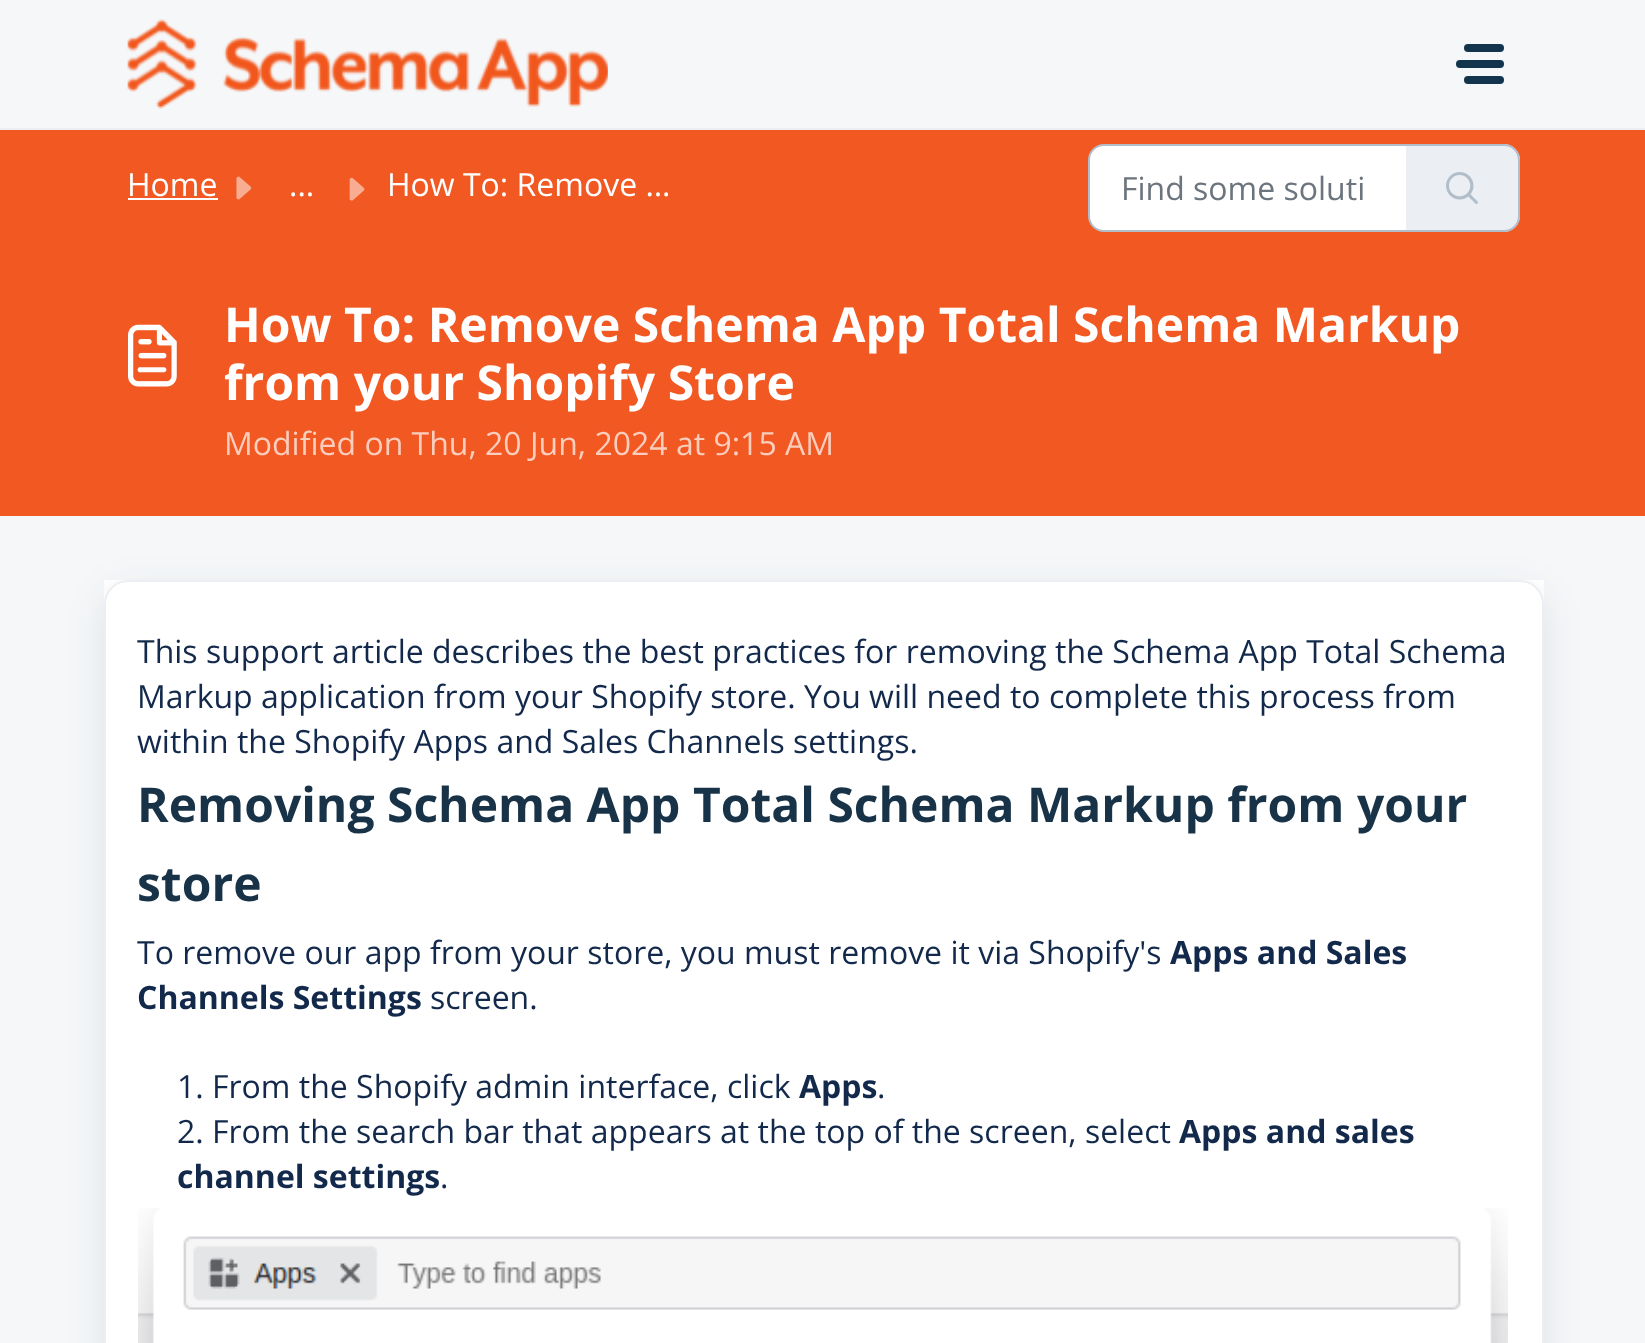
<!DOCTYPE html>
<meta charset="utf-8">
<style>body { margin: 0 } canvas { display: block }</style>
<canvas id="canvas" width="1645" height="1343"></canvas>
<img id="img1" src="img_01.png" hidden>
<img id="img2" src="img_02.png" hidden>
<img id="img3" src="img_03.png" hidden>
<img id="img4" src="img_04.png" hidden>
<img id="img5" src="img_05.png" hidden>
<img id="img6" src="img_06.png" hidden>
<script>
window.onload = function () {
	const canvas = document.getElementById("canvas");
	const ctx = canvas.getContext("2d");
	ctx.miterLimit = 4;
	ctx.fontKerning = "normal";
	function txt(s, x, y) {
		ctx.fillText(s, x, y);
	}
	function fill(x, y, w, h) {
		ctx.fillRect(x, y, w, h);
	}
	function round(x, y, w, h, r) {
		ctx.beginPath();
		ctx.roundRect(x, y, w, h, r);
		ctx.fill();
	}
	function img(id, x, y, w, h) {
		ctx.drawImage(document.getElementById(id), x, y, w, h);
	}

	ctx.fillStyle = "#F5F7F9";
	fill(0, 0, 1645, 1343);
	ctx.fillStyle = "#EBEFF3";
	fill(0, 128, 1645, 2);
	img("img1", 127, 19, 481, 90);
	ctx.fillStyle = "#12344D";
	round(1464, 44, 40, 8, 4);
	round(1456, 60, 48, 8, 4);
	round(1464, 76, 40, 8, 4);
	ctx.fillStyle = "#F15822";
	fill(0, 130, 1645, 386);
	ctx.fillStyle = "#FFFFFF";
	fill(128, 198, 90, 2);
	img("img2", 236, 176, 16, 24);
	img("img3", 349, 177, 16, 24);
	ctx.beginPath();
	ctx.roundRect(1089, 145, 318, 86, [15, 0, 0, 15]);
	ctx.fill();
	ctx.strokeStyle = "#B1BDC8";
	ctx.lineWidth = 2;
	ctx.stroke();
	ctx.fillStyle = "#EBEFF3";
	ctx.beginPath();
	ctx.roundRect(1406, 144, 114, 88, [0, 16, 16, 0]);
	ctx.fill();
	ctx.fillStyle = "#B1BDC8";
	ctx.beginPath();
	ctx.moveTo(1406, 144);
	ctx.lineTo(1504, 144);
	ctx.bezierCurveTo(1513, 144, 1520, 151, 1520, 160);
	ctx.lineTo(1520, 216);
	ctx.bezierCurveTo(1520, 225, 1513, 232, 1504, 232);
	ctx.lineTo(1406, 232);
	ctx.closePath();
	ctx.moveTo(1406, 146);
	ctx.lineTo(1504, 146);
	ctx.bezierCurveTo(1512, 146, 1518, 152, 1518, 160);
	ctx.lineTo(1518, 216);
	ctx.bezierCurveTo(1518, 224, 1512, 230, 1504, 230);
	ctx.lineTo(1406, 230);
	ctx.closePath();
	ctx.fill("evenodd");
	img("img4", 1446, 172, 32, 32);
	img("img5", 128, 324, 49, 63);
	ctx.fillStyle = "#FFFFFF";
	fill(104, 580, 1440, 763);
	ctx.save();
	ctx.beginPath();
	ctx.moveTo(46, 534);
	ctx.lineTo(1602, 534);
	ctx.lineTo(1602, 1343);
	ctx.lineTo(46, 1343);
	ctx.closePath();
	ctx.moveTo(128, 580);
	ctx.lineTo(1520, 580);
	ctx.bezierCurveTo(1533.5, 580, 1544, 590.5, 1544, 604);
	ctx.lineTo(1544, 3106);
	ctx.bezierCurveTo(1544, 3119.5, 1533.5, 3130, 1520, 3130);
	ctx.lineTo(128, 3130);
	ctx.bezierCurveTo(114.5, 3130, 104, 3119.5, 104, 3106);
	ctx.lineTo(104, 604);
	ctx.bezierCurveTo(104, 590.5, 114.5, 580, 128, 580);
	ctx.closePath();
	ctx.clip("evenodd");
	ctx.fillStyle = "rgba(39, 49, 58, 0.1)";
	ctx.filter = "blur(19px)";
	ctx.beginPath();
	ctx.roundRect(104, 592, 1440, 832, 24);
	ctx.fill();
	ctx.filter = "none";
	ctx.restore();
	ctx.beginPath();
	ctx.roundRect(105, 581, 1438, 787, 23);
	ctx.strokeStyle = "#EBEFF3";
	ctx.stroke();
	img("img6", 138, 1208, 1370, 135);
	ctx.font = "32px Open Sans";
	txt("Home", 127, 196);
	txt("...", 289, 196);
	txt("How To: Remove …", 387, 196);
	ctx.fillStyle = "#6C757D";
	txt("Find some soluti", 1121, 200);
	ctx.font = "bold 48px Open Sans";
	ctx.fillStyle = "#FFFFFF";
	txt("How To: Remove Schema App Total Schema Markup", 224, 342);
	txt("from your Shopify Store", 224, 400);
	ctx.font = "32px Open Sans";
	ctx.fillStyle = "#FBCDBD";
	txt("Modified on Thu, 20 Jun, 2024 at 9:15 AM", 224, 455);
	ctx.fillStyle = "#13294B";
	txt("This support article describes the best practices for removing the Schema App Total Schema", 137, 663);
	txt("Markup application from your Shopify store. You will need to complete this process from", 137, 708);
	txt("within the Shopify Apps and Sales Channels settings.", 137, 753);
	ctx.font = "bold 48px Open Sans";
	ctx.fillStyle = "#183247";
	txt("Removing Schema App Total Schema Markup from your", 137, 822);
	txt("store", 137, 901);
	ctx.font = "32px Open Sans";
	ctx.fillStyle = "#13294B";
	txt("To remove our app from your store, you must remove it via Shopify's", 137, 964);
	ctx.font = "bold 32px Open Sans";
	txt("Apps and Sales", 1170, 964);
	txt("Channels Settings", 137, 1009);
	ctx.font = "32px Open Sans";
	txt("screen.", 430, 1009);
	txt("1. From the Shopify admin interface, click", 177, 1098);
	ctx.font = "bold 32px Open Sans";
	txt("Apps", 799, 1098);
	ctx.font = "32px Open Sans";
	txt(".", 877, 1098);
	txt("2. From the search bar that appears at the top of the screen, select", 177, 1143);
	ctx.font = "bold 32px Open Sans";
	txt("Apps and sales", 1179, 1143);
	txt("channel settings", 177, 1188);
	ctx.font = "32px Open Sans";
	txt(".", 440, 1188);
};
</script>
